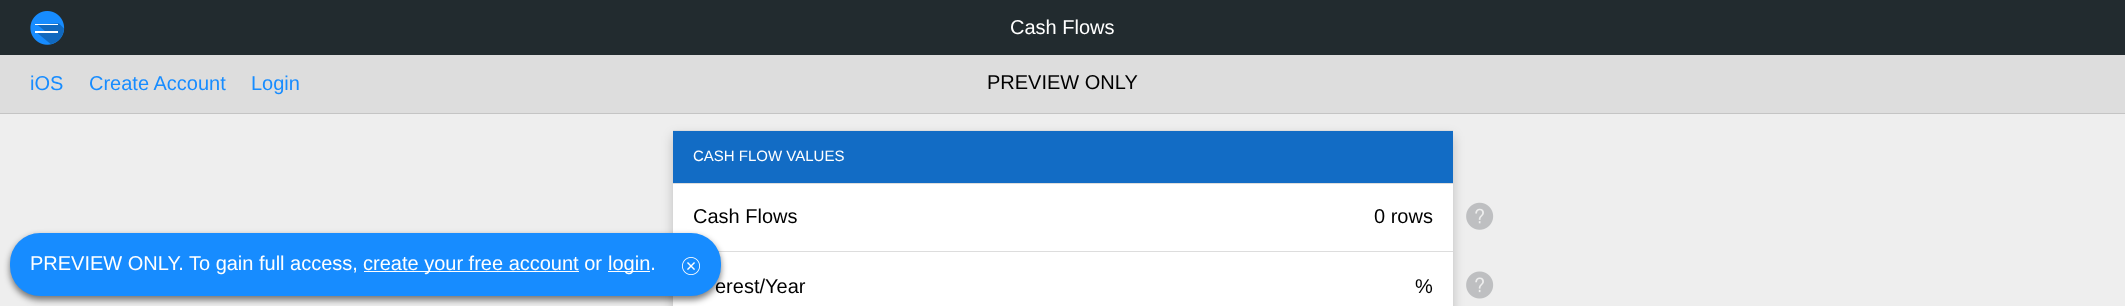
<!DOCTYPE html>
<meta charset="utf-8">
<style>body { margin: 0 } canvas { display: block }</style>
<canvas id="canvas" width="2125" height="306"></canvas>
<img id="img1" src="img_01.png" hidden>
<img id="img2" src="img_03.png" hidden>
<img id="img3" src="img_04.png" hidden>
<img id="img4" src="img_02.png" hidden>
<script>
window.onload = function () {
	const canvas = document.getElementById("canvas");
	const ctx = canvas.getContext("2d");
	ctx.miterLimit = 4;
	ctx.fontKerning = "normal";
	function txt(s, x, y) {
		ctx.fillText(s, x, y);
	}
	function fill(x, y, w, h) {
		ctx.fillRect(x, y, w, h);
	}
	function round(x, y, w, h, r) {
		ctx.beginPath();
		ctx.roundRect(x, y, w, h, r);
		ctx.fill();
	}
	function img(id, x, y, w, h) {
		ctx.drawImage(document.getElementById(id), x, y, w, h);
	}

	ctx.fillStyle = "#EEEEEE";
	fill(0, 0, 2125, 306);
	ctx.fillStyle = "#222B2F";
	fill(0, 0, 2125, 55);
	img("img1", 30, 11, 35, 34);
	ctx.fillStyle = "#DDDDDD";
	fill(0, 55, 2125, 58);
	ctx.fillStyle = "#C4C4C4";
	fill(0, 113, 2125, 1);
	ctx.fillStyle = "rgba(0, 0, 0, 0.2)";
	ctx.filter = "blur(6px)";
	ctx.beginPath();
	ctx.rect(673, 136, 780, 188);
	ctx.fill();
	ctx.filter = "none";
	ctx.fillStyle = "#FFFFFF";
	fill(673, 184, 780, 122);
	ctx.fillStyle = "#DDDDDD";
	fill(718, 251, 735, 1);
	ctx.fillStyle = "rgba(0, 0, 0, 0.5)";
	ctx.filter = "blur(3px)";
	ctx.beginPath();
	ctx.roundRect(10, 236, 711, 64, 30);
	ctx.fill();
	ctx.filter = "none";
	ctx.fillStyle = "#DDDDDD";
	fill(673, 130, 780, 1);
	fill(673, 183, 780, 1);
	ctx.fillStyle = "#126CC5";
	fill(673, 131, 780, 52);
	img("img2", 1466, 202, 28, 28);
	img("img3", 1466, 271, 28, 28);
	ctx.font = "20px Liberation Sans";
	ctx.fillStyle = "#FFFFFF";
	txt("Cash Flows", 1010, 34);
	ctx.fillStyle = "#178CFF";
	txt("iOS", 30, 90);
	txt("Create Account", 89, 90);
	txt("Login", 251, 90);
	ctx.fillStyle = "#000000";
	txt("PREVIEW ONLY", 987, 89);
	ctx.font = "15px Liberation Sans";
	ctx.fillStyle = "#FFFFFF";
	txt("CASH FLOW VALUES", 693, 161);
	ctx.font = "20px Liberation Sans";
	ctx.fillStyle = "#000000";
	txt("Cash Flows", 693, 223);
	txt("0 rows", 1374, 223);
	txt("erest/Year", 715, 293);
	ctx.fillStyle = "#178CFF";
	round(10, 233, 711, 63, 30);
	ctx.fillStyle = "#FFFFFF";
	fill(608, 271, 42, 1);
	txt("login.", 608, 270);
	fill(364, 271, 215, 1);
	txt("create your free account or", 363, 270);
	txt("PREVIEW ONLY. To gain full access,", 30, 270);
	img("img4", 682, 257, 18, 18);
	ctx.fillStyle = "#000000";
	txt("%", 1415, 293);
};
</script>
